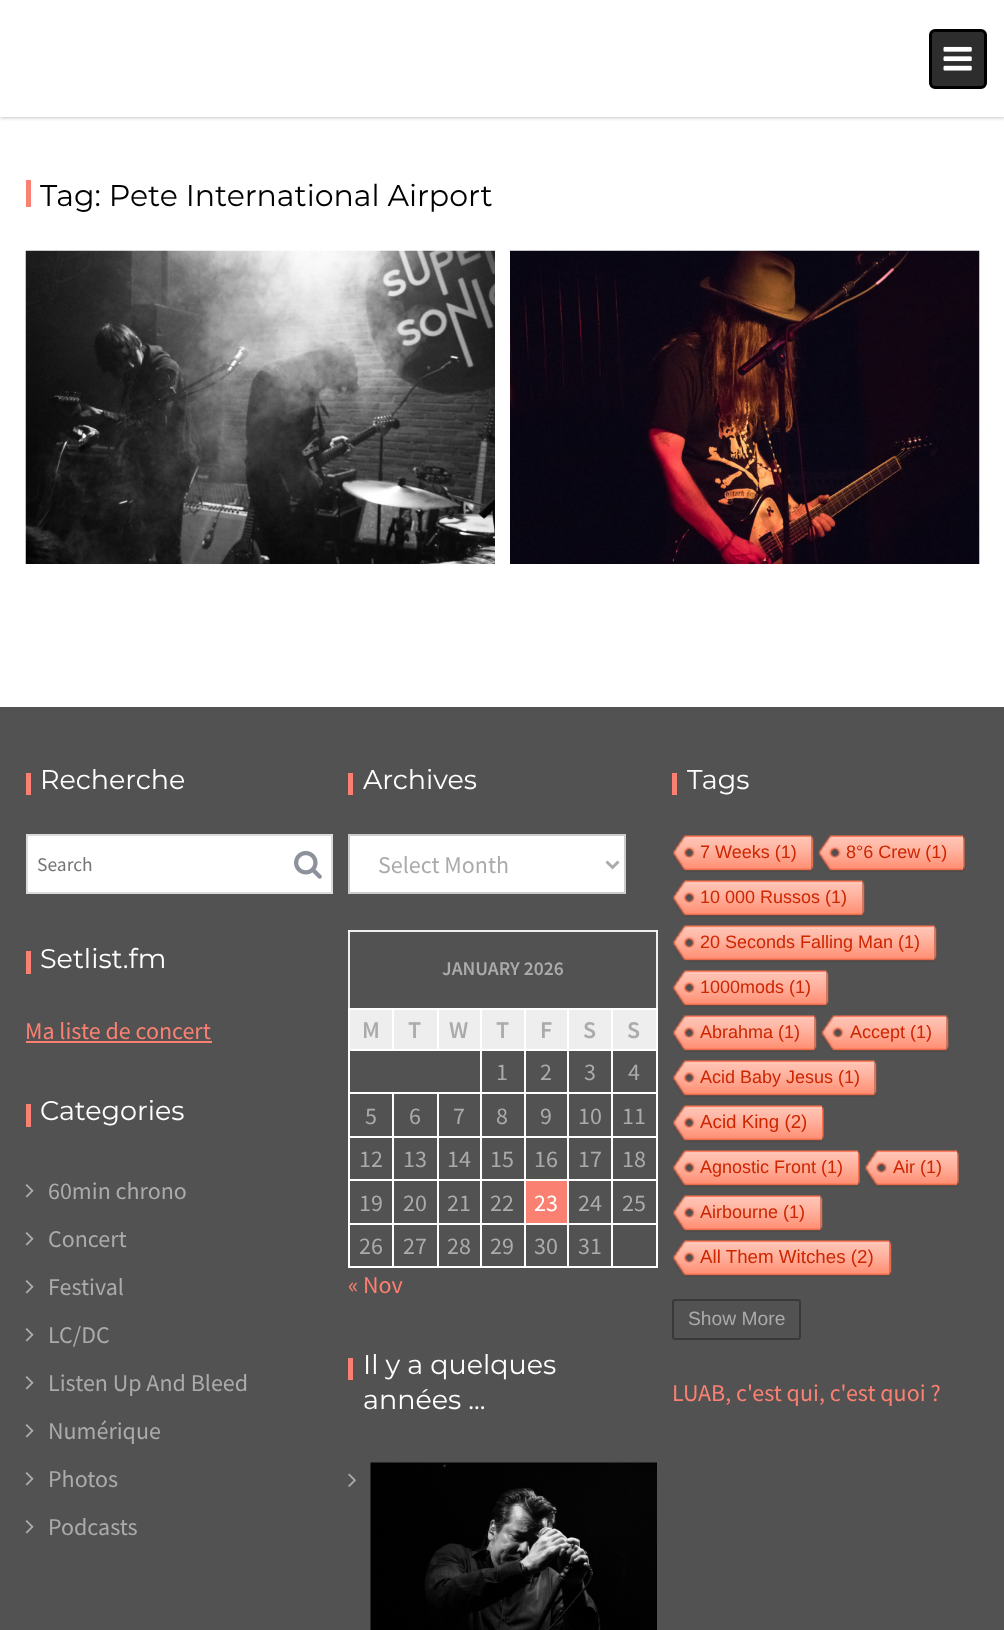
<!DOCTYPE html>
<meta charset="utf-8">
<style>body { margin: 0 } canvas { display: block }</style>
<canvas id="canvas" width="1004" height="1630"></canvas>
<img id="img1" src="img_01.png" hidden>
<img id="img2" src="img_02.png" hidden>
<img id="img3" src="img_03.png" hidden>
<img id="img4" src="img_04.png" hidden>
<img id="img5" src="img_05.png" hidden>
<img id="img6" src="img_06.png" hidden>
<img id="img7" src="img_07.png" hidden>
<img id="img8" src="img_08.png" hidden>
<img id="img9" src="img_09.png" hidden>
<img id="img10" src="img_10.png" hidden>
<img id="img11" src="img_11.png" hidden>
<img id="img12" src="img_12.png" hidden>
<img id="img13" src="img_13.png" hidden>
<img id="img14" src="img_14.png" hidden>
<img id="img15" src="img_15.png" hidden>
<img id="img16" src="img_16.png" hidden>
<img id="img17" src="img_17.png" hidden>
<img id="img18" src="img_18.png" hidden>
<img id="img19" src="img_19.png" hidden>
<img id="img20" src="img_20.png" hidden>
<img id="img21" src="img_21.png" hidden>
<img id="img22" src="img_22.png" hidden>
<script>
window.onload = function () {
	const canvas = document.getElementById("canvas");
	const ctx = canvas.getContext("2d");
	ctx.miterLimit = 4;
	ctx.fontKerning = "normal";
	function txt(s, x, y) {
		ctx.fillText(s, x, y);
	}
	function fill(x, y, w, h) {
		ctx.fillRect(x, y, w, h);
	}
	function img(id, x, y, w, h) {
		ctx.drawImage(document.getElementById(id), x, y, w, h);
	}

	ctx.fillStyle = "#FFFFFF";
	fill(0, 0, 1004, 1630);
	ctx.save();
	ctx.beginPath();
	ctx.rect(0, 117, 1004, 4);
	ctx.clip();
	ctx.fillStyle = "#AAAAAA";
	ctx.filter = "blur(2px)";
	ctx.beginPath();
	ctx.rect(0, 0, 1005, 117);
	ctx.fill();
	ctx.filter = "none";
	ctx.restore();
	ctx.fillStyle = "#2D2D2D";
	ctx.beginPath();
	ctx.roundRect(930.5, 30.5, 55, 57, 4.5);
	ctx.fill();
	ctx.strokeStyle = "#000000";
	ctx.lineWidth = 3;
	ctx.stroke();
	img("img1", 943, 46, 29, 25);
	ctx.fillStyle = "#FA8072";
	fill(26, 180, 5, 27);
	img("img2", 25, 250, 470, 314);
	img("img3", 510, 250, 470, 314);
	ctx.fillStyle = "#525252";
	fill(0, 707, 1004, 923);
	ctx.fillStyle = "#FDFDFD";
	fill(480, 1049, 2, 219);
	fill(524, 1049, 2, 132);
	fill(567, 1049, 2, 132);
	fill(611, 1049, 2, 219);
	fill(392, 1092, 2, 176);
	fill(437, 1092, 2, 176);
	fill(524, 1179, 1, 45);
	fill(524, 1223, 2, 45);
	fill(567, 1223, 2, 45);
	fill(348, 1008, 309, 2);
	ctx.fillStyle = "#EEEEEE";
	fill(348, 930, 2, 78);
	fill(656, 930, 2, 78);
	ctx.fillStyle = "#FA8072";
	fill(26, 773, 5, 22);
	ctx.fillStyle = "#FFFFFF";
	ctx.beginPath();
	ctx.rect(27, 835, 305, 58);
	ctx.fill();
	ctx.strokeStyle = "#DBDBDB";
	ctx.lineWidth = 2;
	ctx.stroke();
	img("img4", 294, 850, 28, 29);
	ctx.fillStyle = "#FA8072";
	fill(26, 951, 5, 23);
	fill(26, 1041, 186, 2);
	fill(26, 1104, 5, 23);
	img("img5", 25, 1184, 9, 14);
	img("img5", 25, 1232, 9, 14);
	img("img5", 25, 1280, 9, 14);
	img("img5", 25, 1328, 9, 14);
	img("img5", 25, 1376, 9, 14);
	img("img5", 25, 1424, 9, 14);
	img("img5", 25, 1472, 9, 14);
	img("img5", 25, 1520, 9, 14);
	fill(348, 773, 5, 22);
	ctx.fillStyle = "#FFFFFF";
	ctx.beginPath();
	ctx.rect(349, 835, 276, 58);
	ctx.fill();
	ctx.strokeStyle = "#CCCCCC";
	ctx.stroke();
	ctx.beginPath();
	ctx.moveTo(606.5, 861.5);
	ctx.lineTo(612.5, 867.5);
	ctx.lineTo(618.5, 861.5);
	ctx.strokeStyle = "#ABABAB";
	ctx.lineWidth = 3;
	ctx.stroke();
	ctx.fillStyle = "#EEEEEE";
	fill(348, 930, 309, 2);
	ctx.fillStyle = "#FDFDFD";
	fill(348, 930, 2, 2);
	fill(656, 930, 1, 2);
	ctx.fillStyle = "#EEEEEE";
	fill(350, 1010, 42, 39);
	ctx.fillStyle = "#FFFFFF";
	fill(348, 1049, 309, 2);
	fill(392, 1008, 2, 42);
	ctx.fillStyle = "#EEEEEE";
	fill(394, 1010, 43, 39);
	ctx.fillStyle = "#FFFFFF";
	fill(437, 1008, 2, 42);
	ctx.fillStyle = "#EEEEEE";
	fill(439, 1010, 41, 39);
	ctx.fillStyle = "#FFFFFF";
	fill(480, 1008, 2, 42);
	ctx.fillStyle = "#EEEEEE";
	fill(482, 1010, 42, 39);
	ctx.fillStyle = "#FFFFFF";
	fill(524, 1008, 2, 42);
	ctx.fillStyle = "#EEEEEE";
	fill(526, 1010, 41, 39);
	ctx.fillStyle = "#FFFFFF";
	fill(567, 1008, 2, 42);
	ctx.fillStyle = "#EEEEEE";
	fill(569, 1010, 42, 39);
	ctx.fillStyle = "#FFFFFF";
	fill(611, 1008, 2, 42);
	ctx.fillStyle = "#EEEEEE";
	fill(613, 1010, 43, 39);
	ctx.fillStyle = "#FFFFFF";
	fill(348, 1092, 309, 2);
	fill(348, 1136, 309, 2);
	fill(348, 1179, 309, 2);
	ctx.fillStyle = "#FFFEFE";
	fill(525, 1181, 1, 43);
	fill(567, 1181, 2, 43);
	ctx.fillStyle = "#FFFFFF";
	fill(348, 1223, 309, 2);
	fill(656, 1223, 2, 45);
	fill(348, 1266, 309, 2);
	fill(348, 1223, 2, 45);
	fill(348, 1179, 2, 45);
	fill(348, 1136, 2, 45);
	fill(348, 1092, 2, 45);
	fill(348, 1008, 2, 86);
	fill(656, 1179, 2, 45);
	fill(656, 1136, 2, 45);
	fill(656, 1092, 2, 45);
	fill(656, 1008, 2, 86);
	ctx.fillStyle = "#FA8072";
	fill(526, 1181, 41, 42);
	fill(348, 1358, 5, 22);
	img("img6", 348, 1473, 8, 14);
	img("img7", 370, 1462, 287, 168);
	fill(672, 773, 5, 22);
	img("img8", 673, 835, 139, 37);
	img("img9", 811, 836, 3, 34);
	img("img10", 818, 835, 145, 37);
	img("img11", 963, 836, 2, 34);
	img("img12", 673, 880, 190, 37);
	img("img9", 862, 881, 3, 34);
	img("img13", 673, 925, 262, 37);
	img("img9", 934, 926, 3, 34);
	img("img14", 673, 970, 154, 37);
	img("img9", 826, 971, 3, 34);
	img("img15", 673, 1015, 142, 37);
	img("img9", 814, 1016, 3, 34);
	img("img16", 821, 1015, 126, 37);
	img("img9", 946, 1016, 3, 34);
	img("img17", 673, 1060, 202, 37);
	img("img9", 874, 1061, 3, 34);
	img("img18", 673, 1105, 149, 37);
	img("img11", 822, 1106, 2, 34);
	img("img19", 673, 1150, 185, 37);
	img("img11", 858, 1151, 2, 34);
	img("img20", 865, 1150, 92, 37);
	img("img11", 957, 1151, 2, 34);
	img("img21", 673, 1195, 148, 37);
	img("img9", 820, 1196, 3, 34);
	img("img22", 673, 1240, 217, 37);
	img("img9", 889, 1241, 3, 34);
	ctx.beginPath();
	ctx.roundRect(673, 1300, 127, 39, 2);
	ctx.strokeStyle = "#393939";
	ctx.lineWidth = 2;
	ctx.stroke();
	ctx.font = "30px Montserrat";
	ctx.fillStyle = "#000000";
	txt("Tag: Pete International Airport", 40, 206);
	ctx.font = "27px Montserrat";
	ctx.fillStyle = "#FFFFFF";
	txt("Recherche", 40, 789);
	ctx.font = "19.5px Source Sans Pro";
	ctx.fillStyle = "#757575";
	txt("Search", 37, 871);
	ctx.font = "27px Montserrat";
	ctx.fillStyle = "#FFFFFF";
	txt("Setlist.fm", 40, 968);
	ctx.font = "24px Source Sans Pro";
	ctx.fillStyle = "#FA8072";
	txt("Ma liste de concert", 25, 1039);
	ctx.font = "27px Montserrat";
	ctx.fillStyle = "#FFFFFF";
	txt("Categories", 40, 1120);
	ctx.font = "24px Source Sans Pro";
	ctx.fillStyle = "#ABABAB";
	txt("60min chrono", 48, 1199);
	txt("Concert", 48, 1247);
	txt("Festival", 48, 1295);
	txt("LC/DC", 48, 1343);
	txt("Listen Up And Bleed", 48, 1391);
	txt("Numérique", 48, 1439);
	txt("Photos", 48, 1487);
	txt("Podcasts", 48, 1535);
	ctx.font = "27px Montserrat";
	ctx.fillStyle = "#FFFFFF";
	txt("Archives", 363, 789);
	ctx.font = "24px Source Sans Pro";
	ctx.fillStyle = "#ABABAB";
	txt("Select Month", 378, 873);
	ctx.font = "600 19.5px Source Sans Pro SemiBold";
	txt("JANUARY 2026", 442, 975);
	ctx.font = "600 24px Source Sans Pro SemiBold";
	txt("M", 362, 1038);
	txt("T", 408, 1038);
	txt("W", 449, 1038);
	txt("T", 496, 1038);
	txt("F", 540, 1038);
	txt("S", 583, 1038);
	txt("S", 627, 1038);
	ctx.font = "24px Source Sans Pro";
	txt("1", 496, 1080);
	txt("2", 540, 1080);
	txt("3", 584, 1080);
	txt("4", 628, 1080);
	txt("5", 365, 1124);
	txt("6", 409, 1124);
	txt("7", 453, 1124);
	txt("8", 496, 1124);
	txt("9", 540, 1124);
	txt("10", 578, 1124);
	txt("11", 622, 1124);
	txt("12", 359, 1167);
	txt("13", 403, 1167);
	txt("14", 447, 1167);
	txt("15", 490, 1167);
	txt("16", 534, 1167);
	txt("17", 578, 1167);
	txt("18", 622, 1167);
	txt("19", 359, 1211);
	txt("20", 403, 1211);
	txt("21", 447, 1211);
	txt("22", 490, 1211);
	ctx.fillStyle = "#FFFFFF";
	txt("23", 534, 1211);
	ctx.fillStyle = "#ABABAB";
	txt("24", 578, 1211);
	txt("25", 622, 1211);
	txt("26", 359, 1254);
	txt("27", 403, 1254);
	txt("28", 447, 1254);
	txt("29", 490, 1254);
	txt("30", 534, 1254);
	txt("31", 578, 1254);
	ctx.fillStyle = "#FA8072";
	txt("« Nov", 348, 1293);
	ctx.font = "27px Montserrat";
	ctx.fillStyle = "#FFFFFF";
	txt("Il y a quelques", 363, 1374);
	txt("années ...", 363, 1409);
	txt("Tags", 687, 789);
	ctx.font = "18px Liberation Sans";
	ctx.fillStyle = "#CD2600";
	txt("7 Weeks (1)", 700, 858);
	txt("8°6 Crew (1)", 846, 858);
	txt("10 000 Russos (1)", 700, 903);
	txt("20 Seconds Falling Man (1)", 700, 948);
	txt("1000mods (1)", 700, 993);
	txt("Abrahma (1)", 700, 1038);
	txt("Accept (1)", 850, 1038);
	txt("Acid Baby Jesus (1)", 700, 1083);
	ctx.font = "18.75px Liberation Sans";
	txt("Acid King (2)", 700, 1128);
	ctx.font = "18px Liberation Sans";
	txt("Agnostic Front (1)", 700, 1173);
	txt("Air (1)", 893, 1173);
	txt("Airbourne (1)", 700, 1218);
	ctx.font = "18.75px Liberation Sans";
	txt("All Them Witches (2)", 700, 1263);
	ctx.font = "19.25px Liberation Sans";
	ctx.fillStyle = "#ABABAB";
	txt("Show More", 688, 1325);
	ctx.font = "24px Source Sans Pro";
	ctx.fillStyle = "#FA8072";
	txt("LUAB, c'est qui, c'est quoi ?", 672, 1401);
};
</script>
